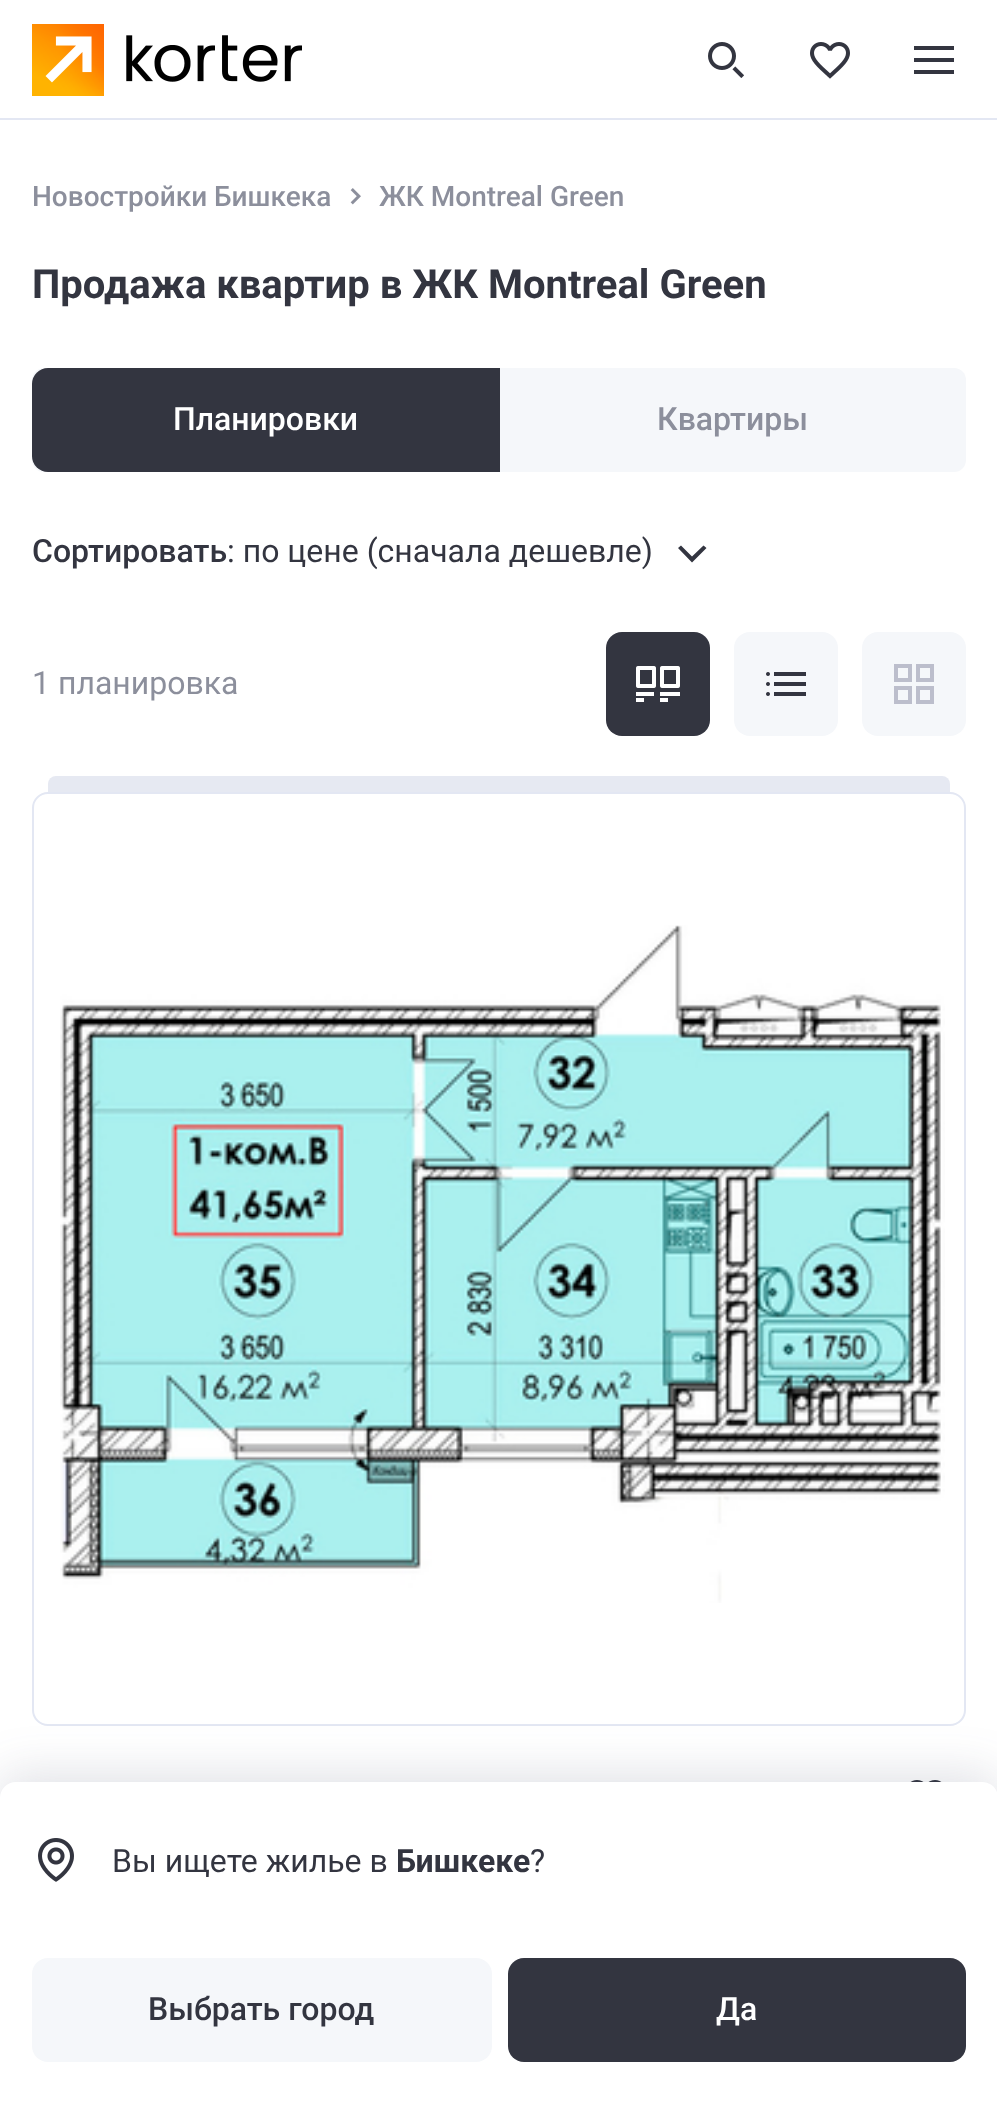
<!DOCTYPE html>
<meta charset="utf-8">
<style>body { margin: 0 } canvas { display: block }</style>
<canvas id="canvas" width="997" height="2122"></canvas>
<img id="img1" src="img_01.png" hidden>
<img id="img2" src="img_02.png" hidden>
<img id="img3" src="img_03.png" hidden>
<img id="img4" src="img_04.png" hidden>
<img id="img5" src="img_05.png" hidden>
<img id="img6" src="img_06.png" hidden>
<img id="img7" src="img_07.png" hidden>
<img id="img8" src="img_08.png" hidden>
<img id="img9" src="img_09.png" hidden>
<img id="img10" src="img_10.png" hidden>
<script>
window.onload = function () {
	const canvas = document.getElementById("canvas");
	const ctx = canvas.getContext("2d");
	ctx.miterLimit = 4;
	ctx.fontKerning = "normal";
	function txt(s, x, y) {
		ctx.fillText(s, x, y);
	}
	function fill(x, y, w, h) {
		ctx.fillRect(x, y, w, h);
	}
	function round(x, y, w, h, r) {
		ctx.beginPath();
		ctx.roundRect(x, y, w, h, r);
		ctx.fill();
	}
	function img(id, x, y, w, h) {
		ctx.drawImage(document.getElementById(id), x, y, w, h);
	}

	ctx.fillStyle = "#FFFFFF";
	fill(0, 0, 997, 2122);
	img("img1", 350, 188, 11, 17);
	ctx.fillStyle = "#F5F7FA";
	round(32, 368, 934, 104, 12);
	ctx.fillStyle = "#333540";
	ctx.beginPath();
	ctx.roundRect(32, 368, 468, 104, [16, 0, 0, 16]);
	ctx.fill();
	ctx.beginPath();
	ctx.moveTo(692, 556.5);
	ctx.lineTo(681, 545.5);
	ctx.lineTo(678, 548);
	ctx.lineTo(692, 562.5);
	ctx.lineTo(706.5, 548);
	ctx.lineTo(703.5, 545.5);
	ctx.closePath();
	ctx.fill("evenodd");
	round(606, 632, 104, 104, 16);
	img("img2", 636, 666, 44, 36);
	ctx.fillStyle = "#F5F7FA";
	round(734, 632, 104, 104, 16);
	img("img3", 766, 672, 40, 24);
	round(862, 632, 104, 104, 16);
	img("img4", 894, 664, 40, 40);
	ctx.fillStyle = "#E6E9F2";
	ctx.beginPath();
	ctx.roundRect(48, 776, 902, 16, [8, 8, 0, 0]);
	ctx.fill();
	ctx.beginPath();
	ctx.roundRect(33, 793, 932, 932, 15);
	ctx.strokeStyle = "#E3E7F3";
	ctx.lineWidth = 2;
	ctx.stroke();
	img("img5", 60, 925, 885, 678);
	img("img6", 910, 1780, 32, 2);
	ctx.fillStyle = "#E3E7F3";
	fill(0, 118, 997, 2);
	img("img7", 32, 24, 270, 72);
	img("img8", 708, 42, 36, 36);
	img("img9", 810, 42, 40, 37);
	ctx.fillStyle = "#333540";
	ctx.beginPath();
	ctx.moveTo(914, 46);
	ctx.lineTo(914, 50);
	ctx.lineTo(954, 50);
	ctx.lineTo(954, 46);
	ctx.closePath();
	ctx.moveTo(914, 62);
	ctx.lineTo(914, 58);
	ctx.lineTo(954, 58);
	ctx.lineTo(954, 62);
	ctx.closePath();
	ctx.moveTo(914, 74);
	ctx.lineTo(914, 70);
	ctx.lineTo(954, 70);
	ctx.lineTo(954, 74);
	ctx.closePath();
	ctx.fill("evenodd");
	ctx.fillStyle = "rgba(60, 70, 100, 0.16)";
	ctx.filter = "blur(24px)";
	ctx.beginPath();
	ctx.roundRect(0, 1774, 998, 340, 16);
	ctx.fill();
	ctx.filter = "none";
	ctx.fillStyle = "#FFFFFF";
	ctx.beginPath();
	ctx.moveTo(16, 1782);
	ctx.lineTo(982, 1782);
	ctx.bezierCurveTo(991, 1782, 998, 1789, 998, 1798);
	ctx.lineTo(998, 2122);
	ctx.lineTo(0, 2122);
	ctx.lineTo(0, 1798);
	ctx.bezierCurveTo(0, 1789, 7, 1782, 16, 1782);
	ctx.closePath();
	ctx.fill();
	img("img10", 38, 1838, 36, 44);
	ctx.fillStyle = "#F5F7FA";
	round(32, 1958, 460, 104, 16);
	ctx.fillStyle = "#333540";
	round(508, 1958, 458, 104, 16);
	ctx.font = "500 28px Roboto";
	ctx.fillStyle = "#8C8F9C";
	txt("Новостройки Бишкека", 32, 206);
	txt("ЖК Montreal Green", 379, 206);
	ctx.font = "bold 40px Roboto";
	ctx.fillStyle = "#333540";
	txt("Продажа квартир в ЖК Montreal Green", 32, 298);
	ctx.font = "500 32px Roboto";
	ctx.fillStyle = "#FFFFFF";
	txt("Планировки", 173, 430);
	ctx.fillStyle = "#8C8F9C";
	txt("Квартиры", 657, 430);
	ctx.fillStyle = "#333540";
	txt("Сортировать", 32, 562);
	ctx.font = "32px Roboto";
	txt(": по цене (сначала дешевле)", 227, 562);
	ctx.fillStyle = "#8C8F9C";
	txt("1 планировка", 32, 694);
	ctx.fillStyle = "#333540";
	txt("Вы ищете жилье в", 112, 1872);
	ctx.font = "bold 32px Roboto";
	txt("Бишкеке", 396, 1872);
	ctx.font = "32px Roboto";
	txt("?", 530, 1872);
	ctx.font = "500 32px Roboto";
	txt("Выбрать город", 148, 2020);
	ctx.fillStyle = "#FFFFFF";
	txt("Да", 716, 2020);
};
</script>
